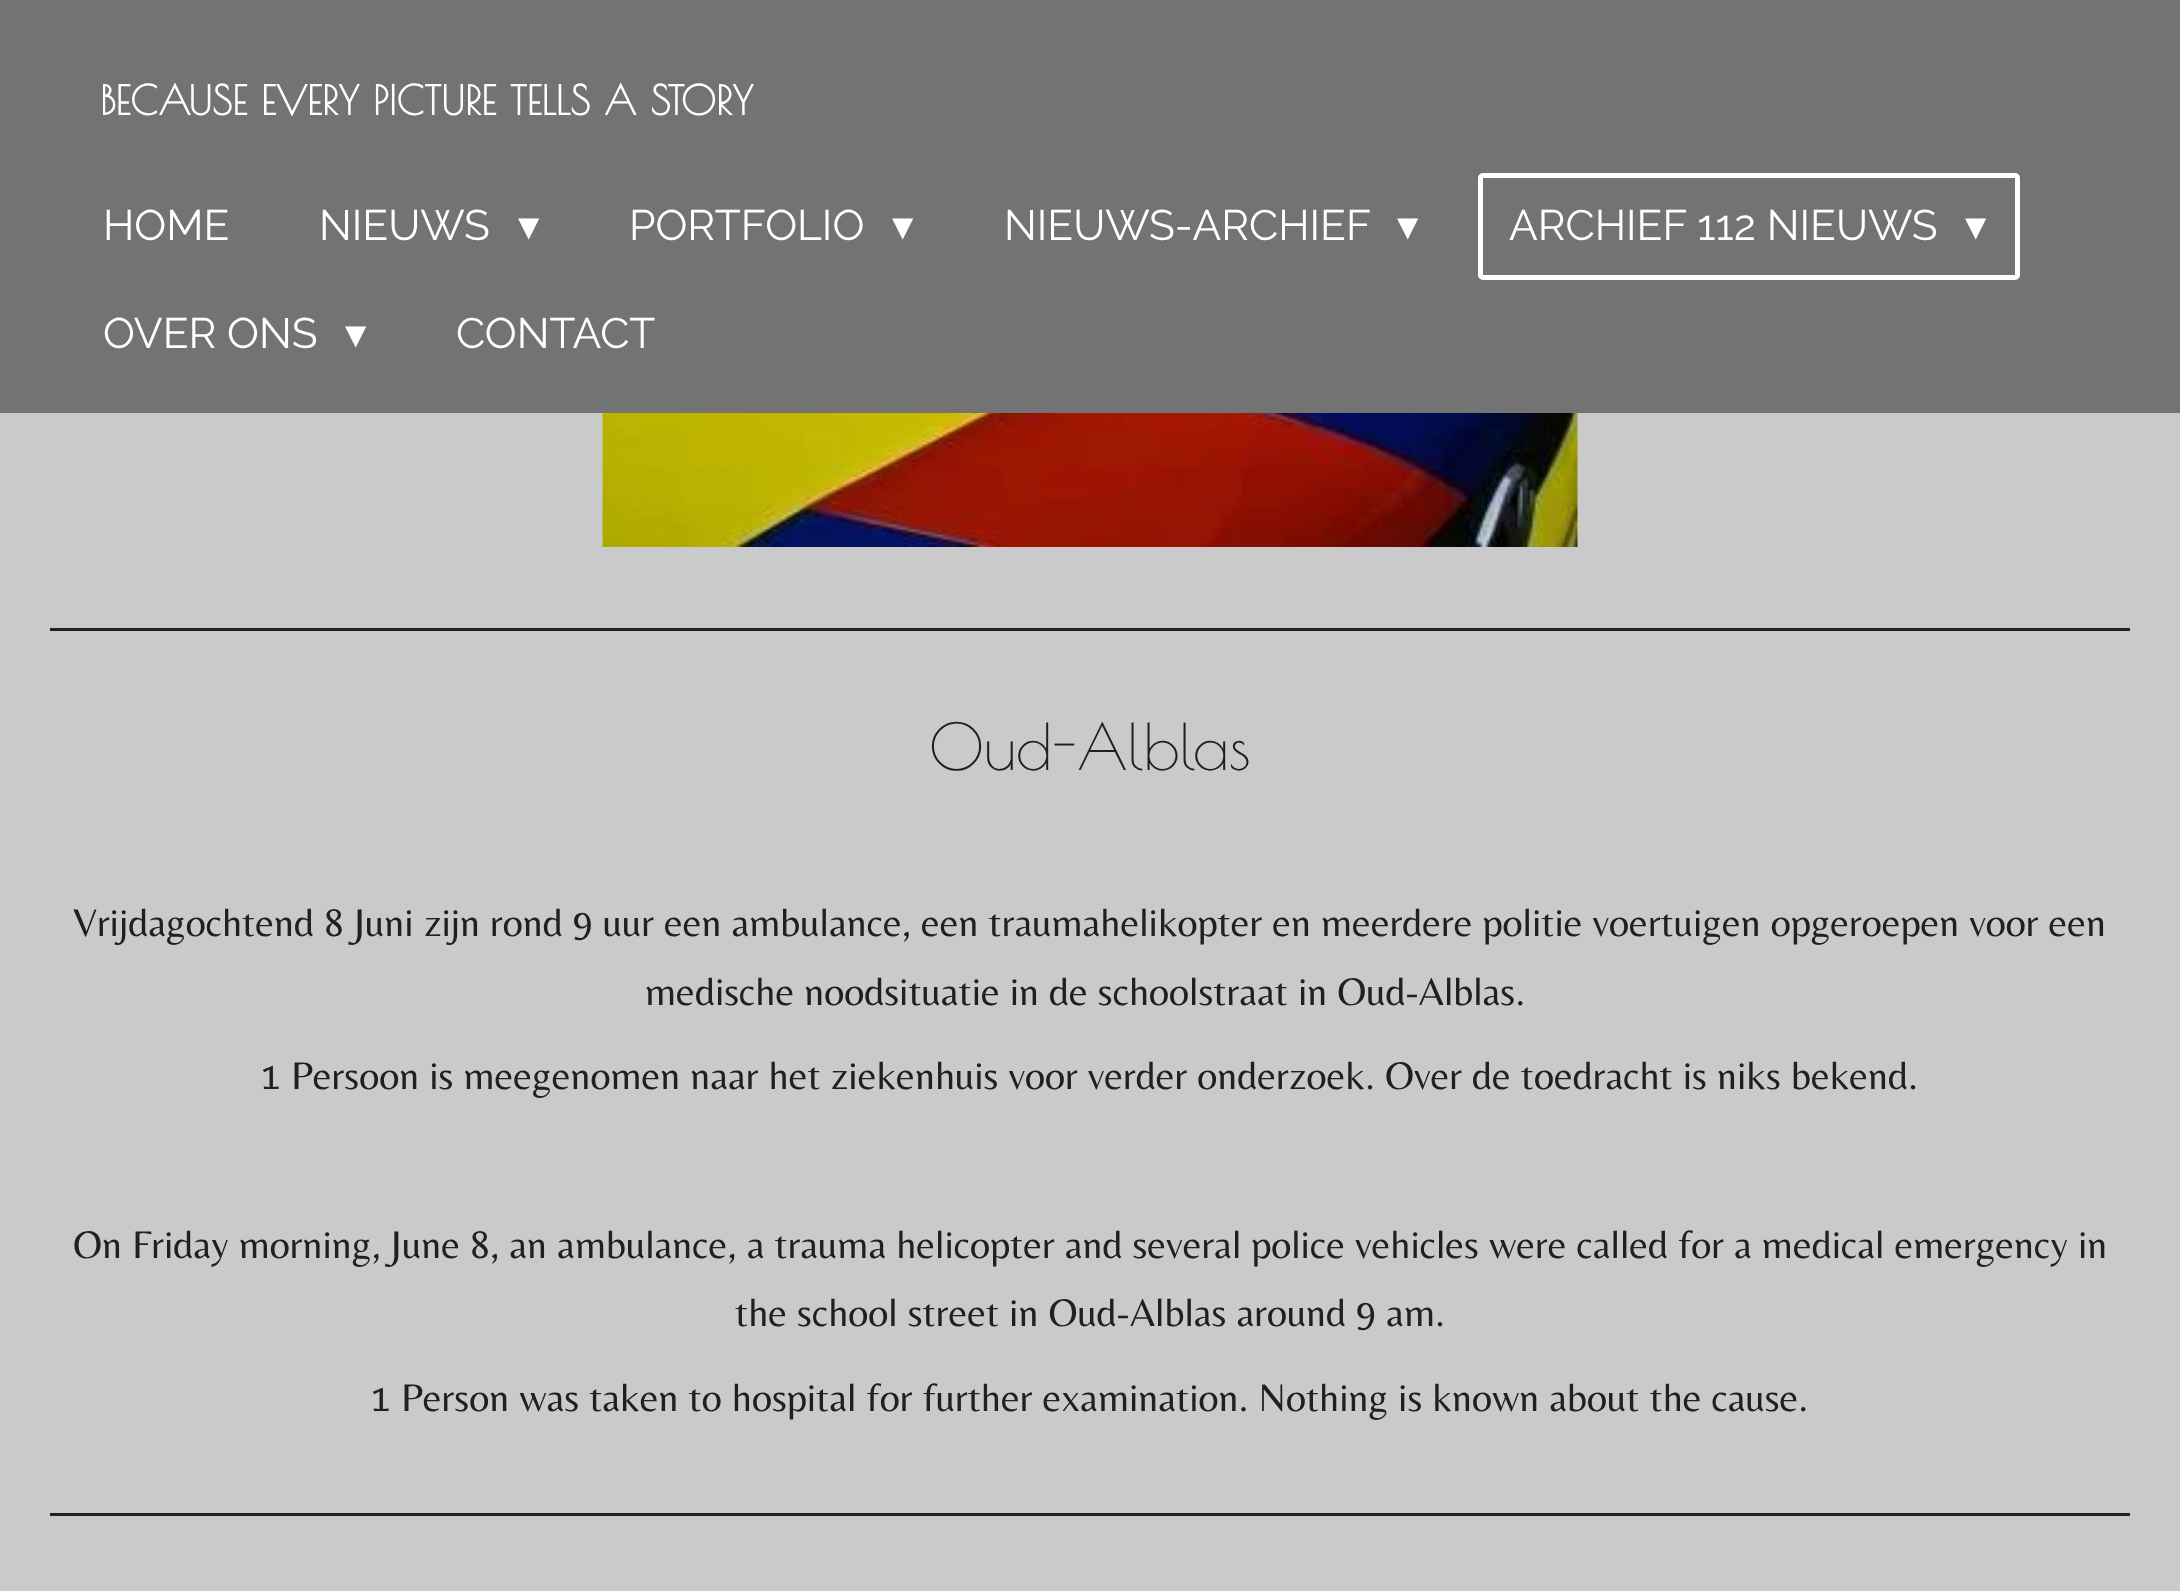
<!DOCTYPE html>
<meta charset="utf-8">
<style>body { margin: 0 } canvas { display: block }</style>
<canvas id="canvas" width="2180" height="1591"></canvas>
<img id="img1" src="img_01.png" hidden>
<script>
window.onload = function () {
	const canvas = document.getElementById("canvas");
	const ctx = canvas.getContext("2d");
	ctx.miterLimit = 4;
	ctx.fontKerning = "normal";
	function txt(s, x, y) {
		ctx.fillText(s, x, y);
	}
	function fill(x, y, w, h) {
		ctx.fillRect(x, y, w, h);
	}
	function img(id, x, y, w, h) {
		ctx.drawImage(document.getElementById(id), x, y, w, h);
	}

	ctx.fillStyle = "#CACACA";
	fill(0, 0, 2180, 1591);
	ctx.fillStyle = "#737373";
	fill(0, 0, 2180, 413);
	ctx.beginPath();
	ctx.roundRect(1480.5, 175.5, 537, 102, 2.5);
	ctx.strokeStyle = "#FFFFFF";
	ctx.lineWidth = 5;
	ctx.stroke();
	img("img1", 602, 413, 976, 134);
	ctx.fillStyle = "#202020";
	fill(50, 628, 2080, 3);
	fill(50, 1513, 2080, 3);
	ctx.font = "bold 40px Poiret One";
	ctx.fillStyle = "#FFFFFF";
	txt("BECAUSE EVERY PICTURE TELLS A STORY", 100, 115);
	ctx.font = "100 42.5px Raleway";
	txt("HOME", 103, 240);
	txt("NIEUWS", 319, 240);
	ctx.font = "42.5px DejaVu Sans";
	txt("▾", 518, 240);
	ctx.font = "100 42.5px Raleway";
	txt("PORTFOLIO", 629, 240);
	ctx.font = "42.5px DejaVu Sans";
	txt("▾", 892, 240);
	ctx.font = "100 42.5px Raleway";
	txt("NIEUWS-ARCHIEF", 1004, 240);
	ctx.font = "42.5px DejaVu Sans";
	txt("▾", 1397, 240);
	ctx.font = "100 42.5px Raleway";
	txt("ARCHIEF 112 NIEUWS", 1509, 240);
	ctx.font = "42.5px DejaVu Sans";
	txt("▾", 1965, 240);
	ctx.font = "100 42.5px Raleway";
	txt("OVER ONS", 103, 348);
	ctx.font = "42.5px DejaVu Sans";
	txt("▾", 345, 348);
	ctx.font = "100 42.5px Raleway";
	txt("CONTACT", 456, 348);
	ctx.font = "63.25px Poiret One";
	ctx.fillStyle = "#202020";
	txt("Oud-Alblas", 929, 770);
	ctx.font = "40px Belleza";
	txt("Vrijdagochtend 8 Juni zijn rond 9 uur een ambulance, een traumahelikopter en meerdere politie voertuigen opgeroepen voor een", 73, 936);
	txt("medische noodsituatie in de schoolstraat in Oud-Alblas.", 645, 1005);
	txt("1 Persoon is meegenomen naar het ziekenhuis voor verder onderzoek. Over de toedracht is niks bekend.", 261, 1089);
	txt("On Friday morning, June 8, an ambulance, a trauma helicopter and several police vehicles were called for a medical emergency in", 73, 1258);
	txt("the school street in Oud-Alblas around 9 am.", 735, 1326);
	txt("1 Person was taken to hospital for further examination. Nothing is known about the cause.", 371, 1411);
};
</script>
